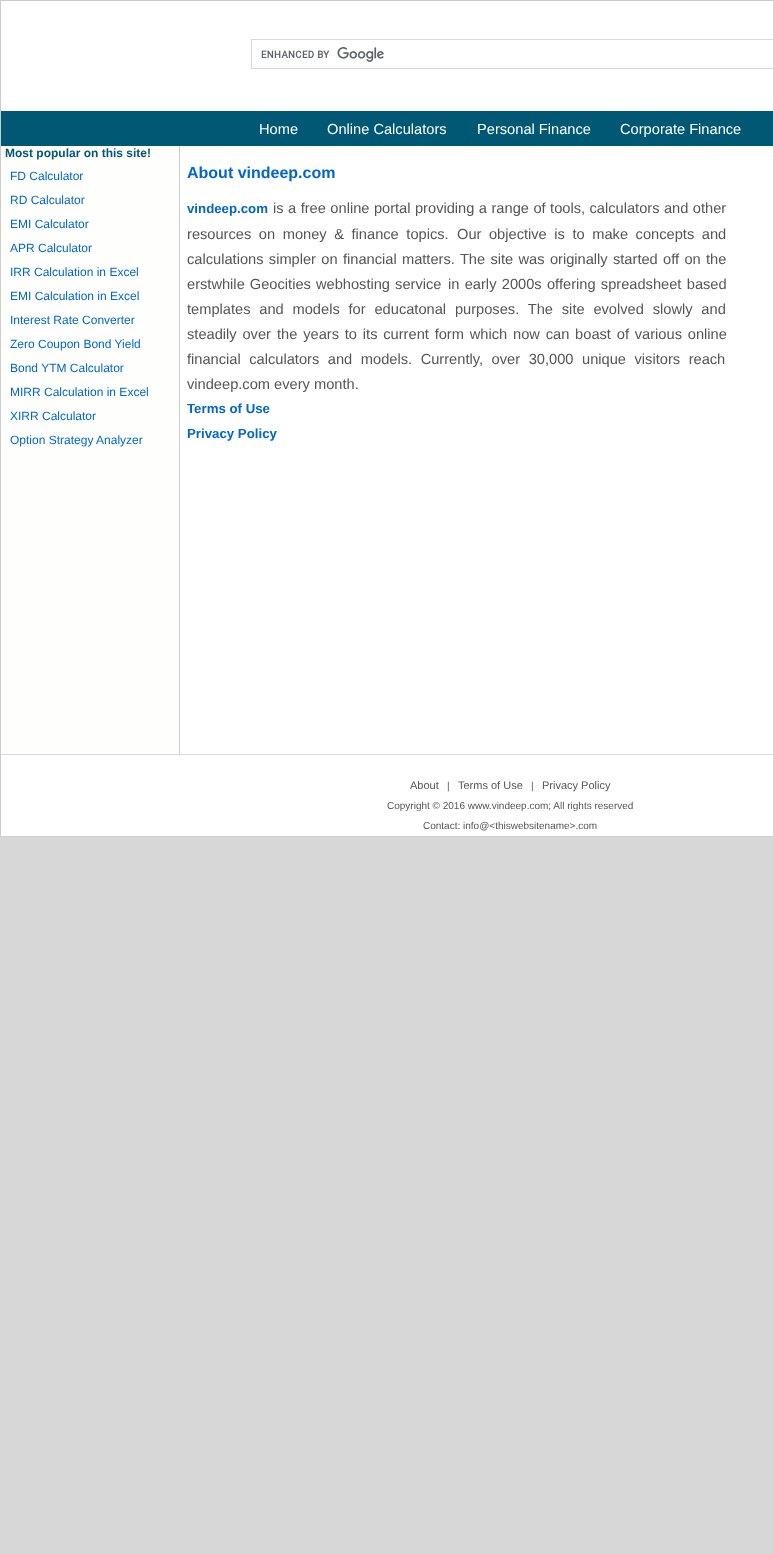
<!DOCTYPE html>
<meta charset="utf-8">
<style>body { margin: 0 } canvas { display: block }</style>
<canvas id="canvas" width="773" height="1554"></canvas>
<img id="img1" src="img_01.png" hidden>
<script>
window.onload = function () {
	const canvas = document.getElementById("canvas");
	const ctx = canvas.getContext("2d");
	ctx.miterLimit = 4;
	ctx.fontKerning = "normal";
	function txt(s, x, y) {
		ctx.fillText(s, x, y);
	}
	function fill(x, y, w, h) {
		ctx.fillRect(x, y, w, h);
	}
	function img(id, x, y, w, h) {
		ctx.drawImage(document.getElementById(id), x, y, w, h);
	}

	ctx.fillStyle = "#D7D7D7";
	fill(0, 0, 773, 1554);
	ctx.fillStyle = "#FFFFFF";
	ctx.beginPath();
	ctx.rect(0.5, 0.5, 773, 836);
	ctx.fill();
	ctx.strokeStyle = "#CCCCCC";
	ctx.stroke();
	ctx.strokeStyle = "#D9D9D9";
	ctx.strokeRect(251.5, 39.5, 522, 29);
	img("img1", 261, 47, 123, 15);
	ctx.fillStyle = "#015874";
	fill(1, 111, 772, 35);
	ctx.fillStyle = "#FEFEFC";
	fill(1, 146, 178, 608);
	ctx.fillStyle = "#CCCCCC";
	fill(179, 146, 1, 608);
	ctx.fillStyle = "#D8D9DA";
	fill(1, 754, 772, 1);
	ctx.font = "14.65px Liberation Sans";
	ctx.fillStyle = "#FFFFFF";
	txt("Home", 259, 134);
	txt("Online Calculators", 327, 134);
	txt("Personal Finance", 477, 134);
	txt("Corporate Finance", 620, 134);
	ctx.font = "bold 12px Liberation Sans";
	ctx.fillStyle = "#015874";
	txt("Most popular on this site!", 5, 157);
	ctx.font = "12px Liberation Sans";
	ctx.fillStyle = "#0066CC";
	txt("FD Calculator", 10, 180);
	txt("RD Calculator", 10, 204);
	txt("EMI Calculator", 10, 228);
	txt("APR Calculator", 10, 252);
	txt("IRR Calculation in Excel", 10, 276);
	txt("EMI Calculation in Excel", 10, 300);
	txt("Interest Rate Converter", 10, 324);
	txt("Zero Coupon Bond Yield", 10, 348);
	txt("Bond YTM Calculator", 10, 372);
	txt("MIRR Calculation in Excel", 10, 396);
	txt("XIRR Calculator", 10, 420);
	txt("Option Strategy Analyzer", 10, 444);
	ctx.font = "bold 16px Liberation Sans";
	txt("About vindeep.com", 187, 178);
	ctx.font = "bold 13.25px Liberation Sans";
	txt("vindeep.com", 187, 213);
	ctx.wordSpacing = "0.4px";
	ctx.font = "14.65px Liberation Sans";
	ctx.fillStyle = "#555555";
	txt("is a free online portal providing a range of tools, calculators and other", 273, 213);
	ctx.wordSpacing = "3.5px";
	txt("resources on money & finance topics.", 187, 239);
	txt("Our objective is to make concepts and", 457, 239);
	ctx.wordSpacing = "1.25px";
	txt("calculations simpler on financial matters. The site was originally started off on the", 187, 264);
	ctx.wordSpacing = "1px";
	txt("erstwhile Geocities webhosting service", 187, 289);
	ctx.wordSpacing = "1.25px";
	txt("in early 2000s offering spreadsheet based", 448, 289);
	ctx.wordSpacing = "4.75px";
	txt("templates and models for educatonal purposes. The site evolved slowly and", 187, 314);
	ctx.wordSpacing = "1.75px";
	txt("steadily over", 187, 339);
	txt("the years to its current form which now can boast of various online", 277, 339);
	ctx.wordSpacing = "4.5px";
	txt("financial calculators and models. Currently, over 30,000 unique visitors reach", 187, 364);
	ctx.wordSpacing = "0px";
	txt("vindeep.com every month.", 187, 389);
	ctx.font = "bold 13.25px Liberation Sans";
	ctx.fillStyle = "#0066CC";
	txt("Terms of Use", 187, 413);
	txt("Privacy Policy", 187, 438);
	ctx.font = "11px Liberation Sans";
	ctx.fillStyle = "#555555";
	txt("About", 410, 789);
	ctx.font = "10px Liberation Sans";
	txt("|", 447, 789);
	ctx.font = "11px Liberation Sans";
	txt("Terms of Use", 458, 789);
	ctx.font = "10px Liberation Sans";
	txt("|", 531, 789);
	ctx.font = "11px Liberation Sans";
	txt("Privacy Policy", 542, 789);
	ctx.font = "10px Liberation Sans";
	txt("Copyright © 2016 www.vindeep.com; All rights reserved", 387, 809);
	txt("Contact: info@<thiswebsitename>.com", 423, 829);
};
</script>
